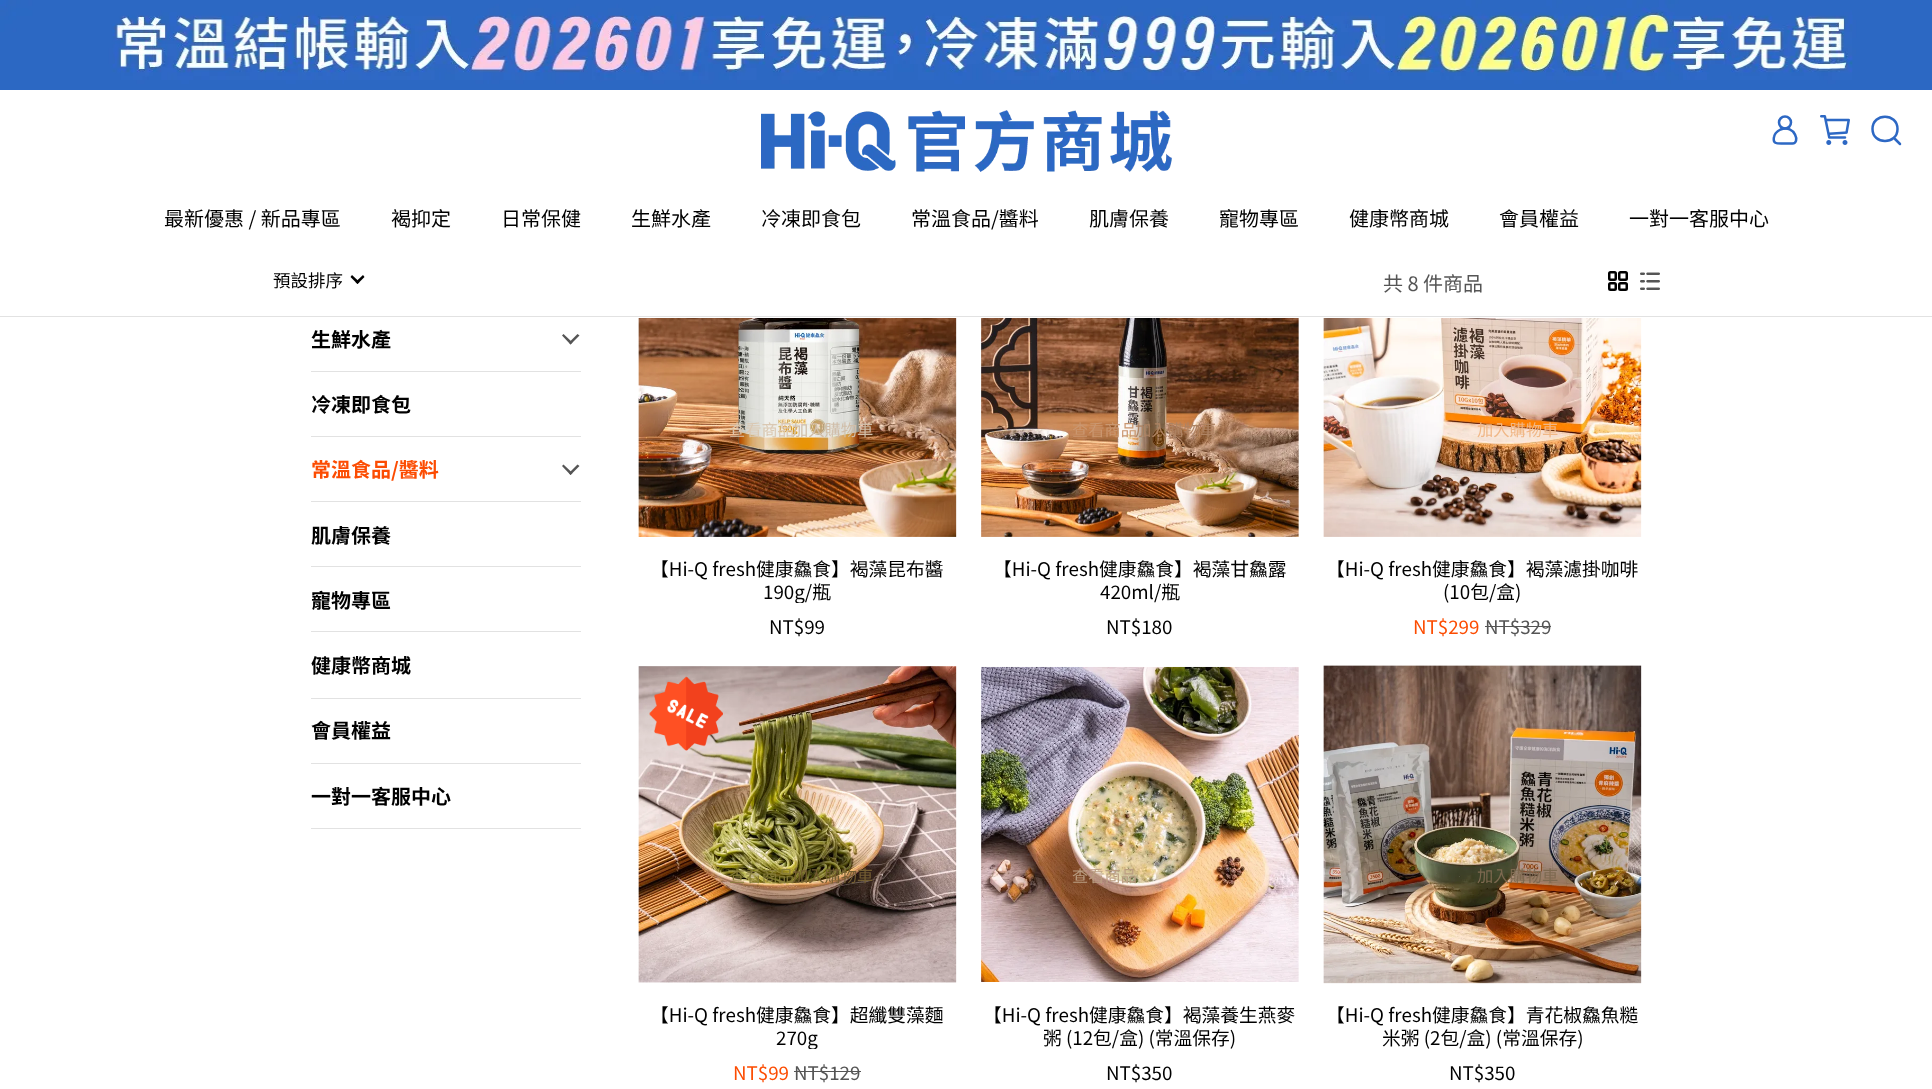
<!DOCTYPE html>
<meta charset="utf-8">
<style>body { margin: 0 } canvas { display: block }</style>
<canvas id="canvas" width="1932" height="1089"></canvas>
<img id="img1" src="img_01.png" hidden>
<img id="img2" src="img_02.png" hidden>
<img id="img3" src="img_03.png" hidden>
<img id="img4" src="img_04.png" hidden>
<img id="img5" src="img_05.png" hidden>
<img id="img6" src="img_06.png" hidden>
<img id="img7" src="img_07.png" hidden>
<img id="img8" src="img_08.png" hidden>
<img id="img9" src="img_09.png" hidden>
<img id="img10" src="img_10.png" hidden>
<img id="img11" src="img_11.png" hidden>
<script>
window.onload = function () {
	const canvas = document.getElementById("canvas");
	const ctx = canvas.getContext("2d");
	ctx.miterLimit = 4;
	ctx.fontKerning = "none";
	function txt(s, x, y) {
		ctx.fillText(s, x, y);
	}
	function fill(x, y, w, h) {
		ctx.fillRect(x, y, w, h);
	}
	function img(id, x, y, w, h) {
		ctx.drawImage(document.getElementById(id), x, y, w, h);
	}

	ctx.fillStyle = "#FFFFFF";
	fill(0, 0, 1932, 1089);
	img("img1", 0, 0, 1932, 90);
	img("img2", 761, 110, 411, 62);
	ctx.beginPath();
	ctx.arc(1785, 122.5, 6, 0, Math.PI * 2);
	ctx.strokeStyle = "#2D68C4";
	ctx.lineWidth = 2.5;
	ctx.stroke();
	ctx.beginPath();
	ctx.moveTo(1792, 143.5);
	ctx.lineTo(1782.5, 143.5);
	ctx.bezierCurveTo(1777, 143.5, 1772.5, 144, 1774, 137);
	ctx.bezierCurveTo(1774.5, 133.5, 1777.5, 131, 1780.5, 129.5);
	ctx.bezierCurveTo(1795, 124, 1801, 144, 1792, 143.5);
	ctx.closePath();
	ctx.stroke();
	img("img3", 1820, 115, 30, 30);
	ctx.beginPath();
	ctx.moveTo(1897.5, 129);
	ctx.bezierCurveTo(1897.5, 145, 1872.5, 145, 1872.5, 129);
	ctx.bezierCurveTo(1872.5, 112.5, 1897.5, 112.5, 1897.5, 129);
	ctx.closePath();
	ctx.moveTo(1895, 139);
	ctx.lineTo(1900, 144);
	ctx.lineCap = "round";
	ctx.lineJoin = "round";
	ctx.stroke();
	ctx.fillStyle = "#E2E2E2";
	fill(0, 316, 1932, 1);
	ctx.fillStyle = "#000000";
	ctx.beginPath();
	ctx.moveTo(363, 275);
	ctx.lineTo(364.5, 277);
	ctx.lineTo(357.5, 284);
	ctx.lineTo(355.5, 282);
	ctx.closePath();
	ctx.fill();
	ctx.beginPath();
	ctx.moveTo(352, 275);
	ctx.lineTo(359.5, 282);
	ctx.lineTo(357.5, 284);
	ctx.lineTo(350.5, 277);
	ctx.closePath();
	ctx.fill();
	ctx.beginPath();
	ctx.roundRect(1609.25, 272.25, 6.5, 7.5, 1.25);
	ctx.strokeStyle = "#000000";
	ctx.lineJoin = "miter";
	ctx.stroke();
	ctx.beginPath();
	ctx.roundRect(1609.25, 283.25, 6.5, 6.5, 1.25);
	ctx.stroke();
	ctx.beginPath();
	ctx.roundRect(1619.25, 272.25, 7.5, 7.5, 1.25);
	ctx.stroke();
	ctx.beginPath();
	ctx.roundRect(1619.25, 283.25, 7.5, 6.5, 1.25);
	ctx.stroke();
	img("img4", 1640, 272, 20, 18);
	ctx.fillStyle = "#E2E2E2";
	fill(311, 371, 270, 1);
	ctx.fillStyle = "#555555";
	ctx.beginPath();
	ctx.moveTo(569, 342.5);
	ctx.lineTo(577.5, 334);
	ctx.lineTo(579.5, 335.5);
	ctx.lineTo(570.5, 344.5);
	ctx.closePath();
	ctx.fill();
	ctx.beginPath();
	ctx.moveTo(562, 335.5);
	ctx.lineTo(563.5, 334);
	ctx.lineTo(572.5, 342.5);
	ctx.lineTo(570.5, 344.5);
	ctx.closePath();
	ctx.fill();
	ctx.fillStyle = "#E2E2E2";
	fill(311, 436, 270, 1);
	fill(311, 501, 270, 1);
	ctx.fillStyle = "#555555";
	ctx.beginPath();
	ctx.moveTo(569, 473);
	ctx.lineTo(577.5, 464.5);
	ctx.lineTo(579.5, 466);
	ctx.lineTo(570.5, 475);
	ctx.closePath();
	ctx.fill();
	ctx.beginPath();
	ctx.moveTo(562, 466);
	ctx.lineTo(563.5, 464.5);
	ctx.lineTo(572.5, 473);
	ctx.lineTo(570.5, 475);
	ctx.closePath();
	ctx.fill();
	ctx.fillStyle = "#E2E2E2";
	fill(311, 566, 270, 1);
	fill(311, 631, 270, 1);
	fill(311, 698, 270, 1);
	fill(311, 763, 270, 1);
	fill(311, 828, 270, 1);
	img("img5", 638, 318, 319, 219);
	img("img6", 981, 318, 318, 219);
	img("img7", 1323, 318, 319, 219);
	ctx.fillStyle = "#555555";
	fill(1485, 626, 66, 1);
	img("img8", 638, 666, 319, 317);
	img("img9", 649, 676, 74, 75);
	fill(794, 1071, 67, 1);
	img("img10", 981, 666, 318, 316);
	img("img11", 1323, 665, 319, 319);
	ctx.font = "20px Noto Sans TC";
	ctx.fillStyle = "#000000";
	txt("最新優惠 / 新品專區", 164, 226);
	txt("褐抑定", 391, 226);
	txt("日常保健", 501, 226);
	txt("生鮮水產", 631, 226);
	txt("冷凍即食包", 761, 226);
	txt("常溫食品/醬料", 911, 226);
	txt("肌膚保養", 1089, 226);
	txt("寵物專區", 1219, 226);
	txt("健康幣商城", 1349, 226);
	txt("會員權益", 1499, 226);
	txt("一對一客服中心", 1629, 226);
	ctx.font = "17.5px Noto Sans TC";
	txt("預設排序", 273, 287);
	ctx.font = "20px Noto Sans TC";
	ctx.fillStyle = "#555555";
	txt("共 8 件商品", 1383, 291);
	ctx.font = "bold 20px Noto Sans TC";
	ctx.fillStyle = "#000000";
	txt("生鮮水產", 311, 347);
	txt("冷凍即食包", 311, 412);
	ctx.fillStyle = "#FC4C02";
	txt("常溫食品/醬料", 311, 477);
	ctx.fillStyle = "#000000";
	txt("肌膚保養", 311, 543);
	txt("寵物專區", 311, 608);
	txt("健康幣商城", 311, 673);
	txt("會員權益", 311, 738);
	txt("一對一客服中心", 311, 804);
	ctx.font = "16.25px Noto Sans TC";
	ctx.fillStyle = "#DAC8B2";
	txt("查看商品", 729, 436);
	ctx.fillStyle = "#D0BEA9";
	txt("加入購物車", 792, 436);
	ctx.font = "18.75px Noto Sans TC";
	ctx.fillStyle = "#000000";
	txt("【Hi-Q fresh健康鱻食】褐藻昆布醬", 650, 576);
	ctx.save();
	ctx.beginPath();
	ctx.rect(639, 558, 317, 45);
	ctx.clip();
	txt("190g/瓶", 763, 599);
	ctx.restore();
	txt("NT$99", 769, 634);
	ctx.font = "16.25px Noto Sans TC";
	ctx.fillStyle = "#CA9770";
	txt("查看商品", 1072, 436);
	ctx.fillStyle = "#AE8363";
	txt("加入購物車", 1135, 436);
	ctx.font = "18.75px Noto Sans TC";
	ctx.fillStyle = "#000000";
	txt("【Hi-Q fresh健康鱻食】褐藻甘鱻露", 993, 576);
	txt("420ml/瓶", 1100, 599);
	txt("NT$180", 1106, 634);
	ctx.font = "16.25px Noto Sans TC";
	ctx.fillStyle = "#F0B786";
	txt("加入購物車", 1477, 436);
	ctx.font = "18.75px Noto Sans TC";
	ctx.fillStyle = "#000000";
	txt("【Hi-Q fresh健康鱻食】褐藻濾掛咖啡", 1326, 576);
	txt("(10包/盒)", 1443, 599);
	ctx.fillStyle = "#FC4C02";
	txt("NT$299", 1413, 634);
	ctx.fillStyle = "#555555";
	txt("NT$329", 1485, 634);
	ctx.font = "16.25px Noto Sans TC";
	ctx.fillStyle = "#887D3B";
	txt("查看商品", 729, 882);
	ctx.fillStyle = "#735D32";
	txt("加入購物車", 792, 882);
	ctx.font = "18.75px Noto Sans TC";
	ctx.fillStyle = "#000000";
	txt("【Hi-Q fresh健康鱻食】超纖雙藻麵", 650, 1022);
	ctx.save();
	ctx.beginPath();
	ctx.rect(639, 1004, 317, 45);
	ctx.clip();
	txt("270g", 776, 1045);
	ctx.restore();
	ctx.fillStyle = "#FC4C02";
	txt("NT$99", 733, 1080);
	ctx.fillStyle = "#555555";
	txt("NT$129", 794, 1080);
	ctx.font = "16.25px Noto Sans TC";
	ctx.fillStyle = "#BA9D81";
	txt("查看商品", 1072, 882);
	ctx.font = "18.75px Noto Sans TC";
	ctx.fillStyle = "#000000";
	txt("【Hi-Q fresh健康鱻食】褐藻養生燕麥", 983, 1022);
	txt("粥 (12包/盒) (常溫保存)", 1043, 1045);
	txt("NT$350", 1106, 1080);
	ctx.font = "16.25px Noto Sans TC";
	ctx.fillStyle = "#7D6950";
	txt("加入購物車", 1477, 882);
	ctx.font = "18.75px Noto Sans TC";
	ctx.fillStyle = "#000000";
	txt("【Hi-Q fresh健康鱻食】青花椒鱻魚糙", 1326, 1022);
	txt("米粥 (2包/盒) (常溫保存)", 1382, 1045);
	txt("NT$350", 1449, 1080);
};
</script>
